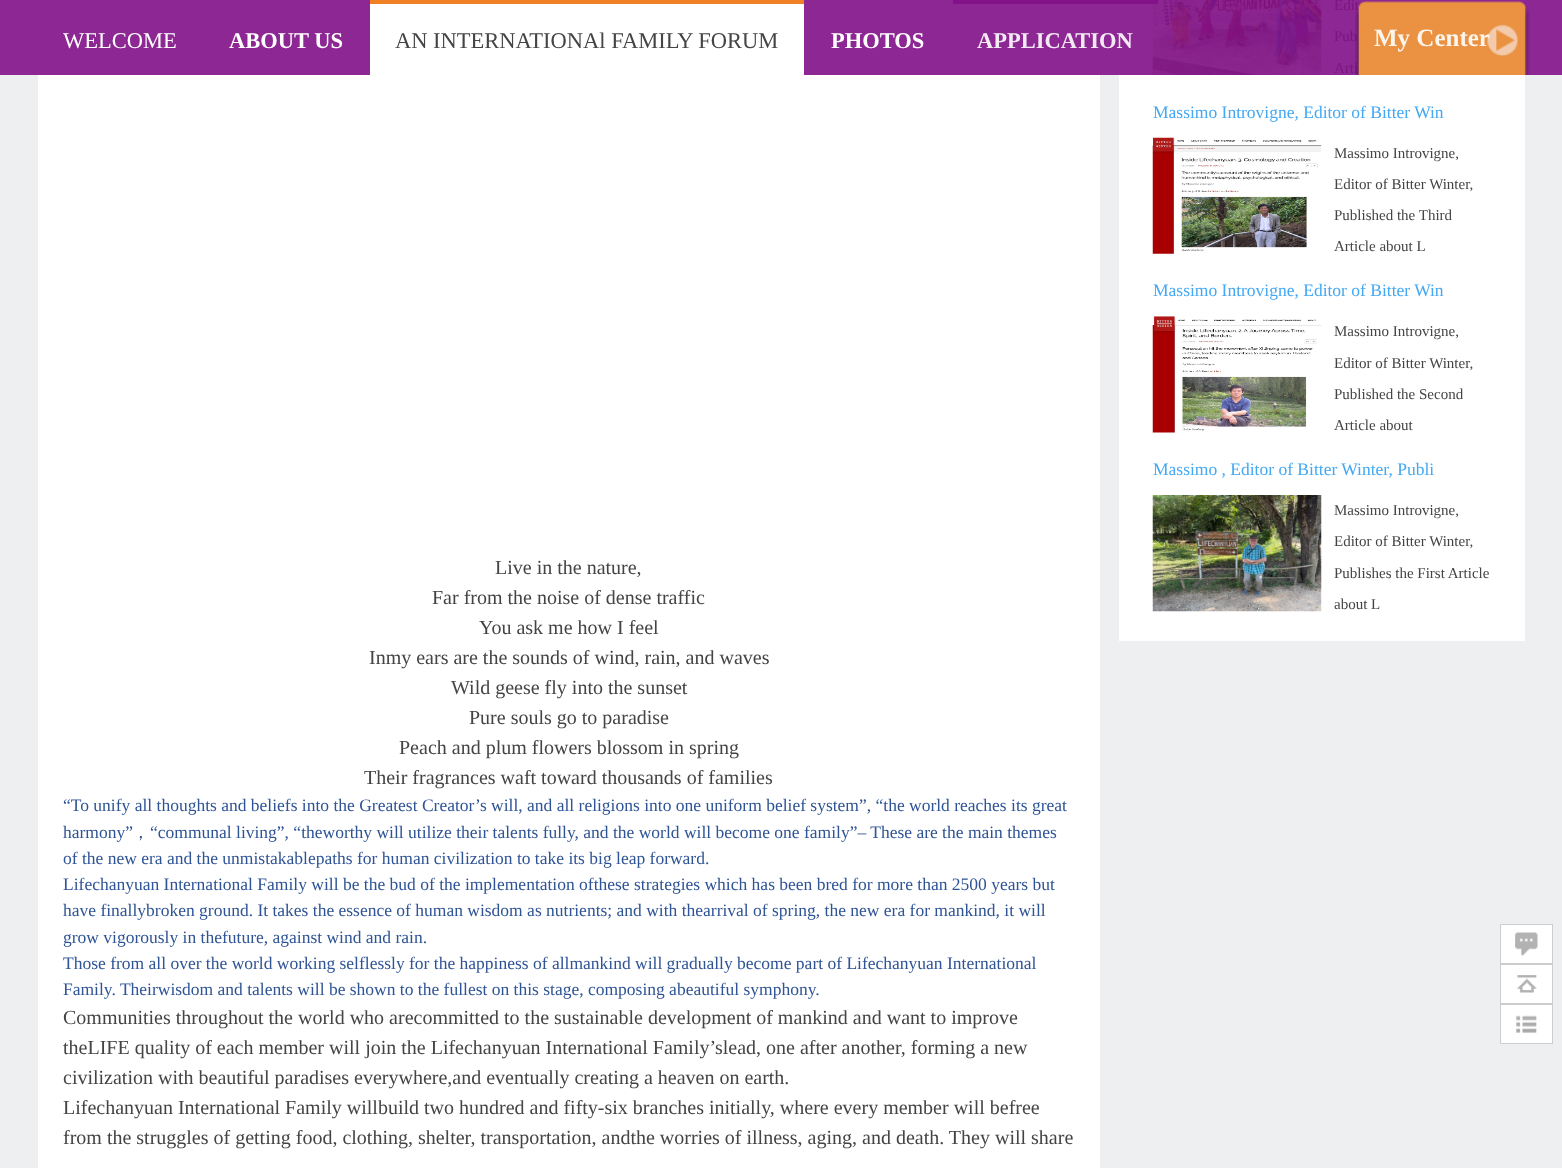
<!DOCTYPE html>
<meta charset="utf-8">
<style>body { margin: 0 } canvas { display: block }</style>
<canvas id="canvas" width="1562" height="1168"></canvas>
<img id="img1" src="img_01.png" hidden>
<img id="img2" src="img_02.png" hidden>
<img id="img3" src="img_03.png" hidden>
<img id="img4" src="img_04.png" hidden>
<img id="img5" src="img_06.png" hidden>
<img id="img6" src="img_07.png" hidden>
<img id="img7" src="img_08.png" hidden>
<img id="img8" src="img_05.png" hidden>
<script>
window.onload = function () {
	const canvas = document.getElementById("canvas");
	const ctx = canvas.getContext("2d");
	ctx.miterLimit = 4;
	ctx.fontKerning = "normal";
	function txt(s, x, y) {
		ctx.fillText(s, x, y);
	}
	function fill(x, y, w, h) {
		ctx.fillRect(x, y, w, h);
	}
	function img(id, x, y, w, h) {
		ctx.drawImage(document.getElementById(id), x, y, w, h);
	}

	ctx.fillStyle = "#EEEFF1";
	fill(0, 0, 1562, 1168);
	ctx.fillStyle = "#8D2793";
	fill(0, 0, 1562, 75);
	ctx.fillStyle = "#FFFFFF";
	fill(1119, 75, 406, 566);
	img("img1", 1152, 0, 170, 75);
	img("img2", 1152, 137, 170, 117);
	img("img3", 1152, 316, 170, 117);
	img("img4", 1152, 495, 170, 117);
	fill(38, 75, 1062, 1093);
	fill(370, 4, 434, 71);
	ctx.fillStyle = "#EF8023";
	fill(370, 0, 434, 4);
	ctx.fillStyle = "rgba(130, 17, 136, 0.9)";
	fill(953, 0, 205, 4);
	ctx.fillStyle = "#FFFFFF";
	fill(1501, 925, 51, 38);
	img("img5", 1515, 932, 23, 24);
	ctx.strokeStyle = "#CDCDCD";
	ctx.strokeRect(1500.5, 924.5, 52, 39);
	fill(1501, 965, 51, 38);
	img("img6", 1517, 975, 20, 18);
	ctx.strokeRect(1500.5, 964.5, 52, 39);
	fill(1501, 1005, 51, 38);
	img("img7", 1516, 1015, 21, 18);
	ctx.strokeRect(1500.5, 1004.5, 52, 39);
	ctx.font = "15px Liberation Serif";
	ctx.fillStyle = "#7C1681";
	txt("Edit", 1334, 10);
	txt("Pub", 1334, 41);
	txt("Arti", 1334, 73);
	ctx.font = "17.5px Liberation Serif";
	ctx.fillStyle = "#44A8F2";
	txt("Massimo Introvigne, Editor of Bitter Win", 1153, 118);
	ctx.font = "15px Liberation Serif";
	ctx.fillStyle = "#444444";
	txt("Massimo Introvigne,", 1334, 158);
	txt("Editor of Bitter Winter,", 1334, 189);
	txt("Published the Third", 1334, 220);
	txt("Article about L", 1334, 251);
	ctx.font = "17.5px Liberation Serif";
	ctx.fillStyle = "#44A8F2";
	txt("Massimo Introvigne, Editor of Bitter Win", 1153, 296);
	ctx.font = "15px Liberation Serif";
	ctx.fillStyle = "#444444";
	txt("Massimo Introvigne,", 1334, 336);
	txt("Editor of Bitter Winter,", 1334, 368);
	txt("Published the Second", 1334, 399);
	txt("Article about", 1334, 430);
	ctx.font = "17.5px Liberation Serif";
	ctx.fillStyle = "#44A8F2";
	txt("Massimo , Editor of Bitter Winter, Publi", 1153, 475);
	ctx.font = "15px Liberation Serif";
	ctx.fillStyle = "#444444";
	txt("Massimo Introvigne,", 1334, 515);
	txt("Editor of Bitter Winter,", 1334, 546);
	txt("Publishes the First Article", 1334, 578);
	txt("about L", 1334, 609);
	ctx.font = "20px Liberation Serif";
	txt("Live in the nature,", 495, 574);
	txt("Far from the noise of dense traffic", 432, 604);
	txt("You ask me how I feel", 479, 634);
	txt("Inmy ears are the sounds of wind, rain, and waves", 369, 664);
	txt("Wild geese fly into the sunset", 451, 694);
	txt("Pure souls go to paradise", 469, 724);
	txt("Peach and plum flowers blossom in spring", 399, 754);
	txt("Their fragrances waft toward thousands of families", 364, 784);
	ctx.font = "17.5px Liberation Serif";
	ctx.fillStyle = "#2F5496";
	txt("“To unify all thoughts and beliefs into the Greatest Creator’s will, and all religions into one uniform belief system”, “the world reaches its great", 63, 811);
	txt("harmony”", 63, 838);
	ctx.font = "500 17.5px WenQuanYi Zen Hei";
	txt("，", 132, 838);
	ctx.font = "17.5px Liberation Serif";
	txt("“communal living”, “theworthy will utilize their talents fully, and the world will become one family”– These are the main themes", 150, 838);
	txt("of the new era and the unmistakablepaths for human civilization to take its big leap forward.", 63, 864);
	txt("Lifechanyuan International Family will be the bud of the implementation ofthese strategies which has been bred for more than 2500 years but", 63, 890);
	txt("have finallybroken ground. It takes the essence of human wisdom as nutrients; and with thearrival of spring, the new era for mankind, it will", 63, 916);
	txt("grow vigorously in thefuture, against wind and rain.", 63, 943);
	txt("Those from all over the world working selflessly for the happiness of allmankind will gradually become part of Lifechanyuan International", 63, 969);
	txt("Family. Theirwisdom and talents will be shown to the fullest on this stage, composing abeautiful symphony.", 63, 995);
	ctx.font = "20px Liberation Serif";
	ctx.fillStyle = "#444444";
	txt("Communities throughout the world who arecommitted to the sustainable development of mankind and want to improve", 63, 1024);
	txt("theLIFE quality of each member will join the Lifechanyuan International Family’slead, one after another, forming a new", 63, 1054);
	txt("civilization with beautiful paradises everywhere,and eventually creating a heaven on earth.", 63, 1084);
	txt("Lifechanyuan International Family willbuild two hundred and fifty-six branches initially, where every member will befree", 63, 1114);
	txt("from the struggles of getting food, clothing, shelter, transportation, andthe worries of illness, aging, and death. They will share", 63, 1144);
	ctx.font = "22.5px Liberation Serif";
	ctx.fillStyle = "#FFFFFF";
	txt("WELCOME", 63, 48);
	ctx.font = "bold 22.5px Liberation Serif";
	txt("ABOUT US", 229, 48);
	ctx.font = "22.5px Liberation Serif";
	ctx.fillStyle = "#444444";
	txt("AN INTERNATIONAl FAMILY FORUM", 395, 48);
	ctx.font = "bold 22.5px Liberation Serif";
	ctx.fillStyle = "#FFFFFF";
	txt("PHOTOS", 831, 48);
	ctx.fillStyle = "#F4EAF4";
	txt("APPLICATION", 977, 48);
	img("img8", 1355, 1, 175, 74);
	ctx.font = "bold 25px Liberation Serif";
	ctx.fillStyle = "#FDF4EC";
	txt("My Center", 1374, 46);
};
</script>
